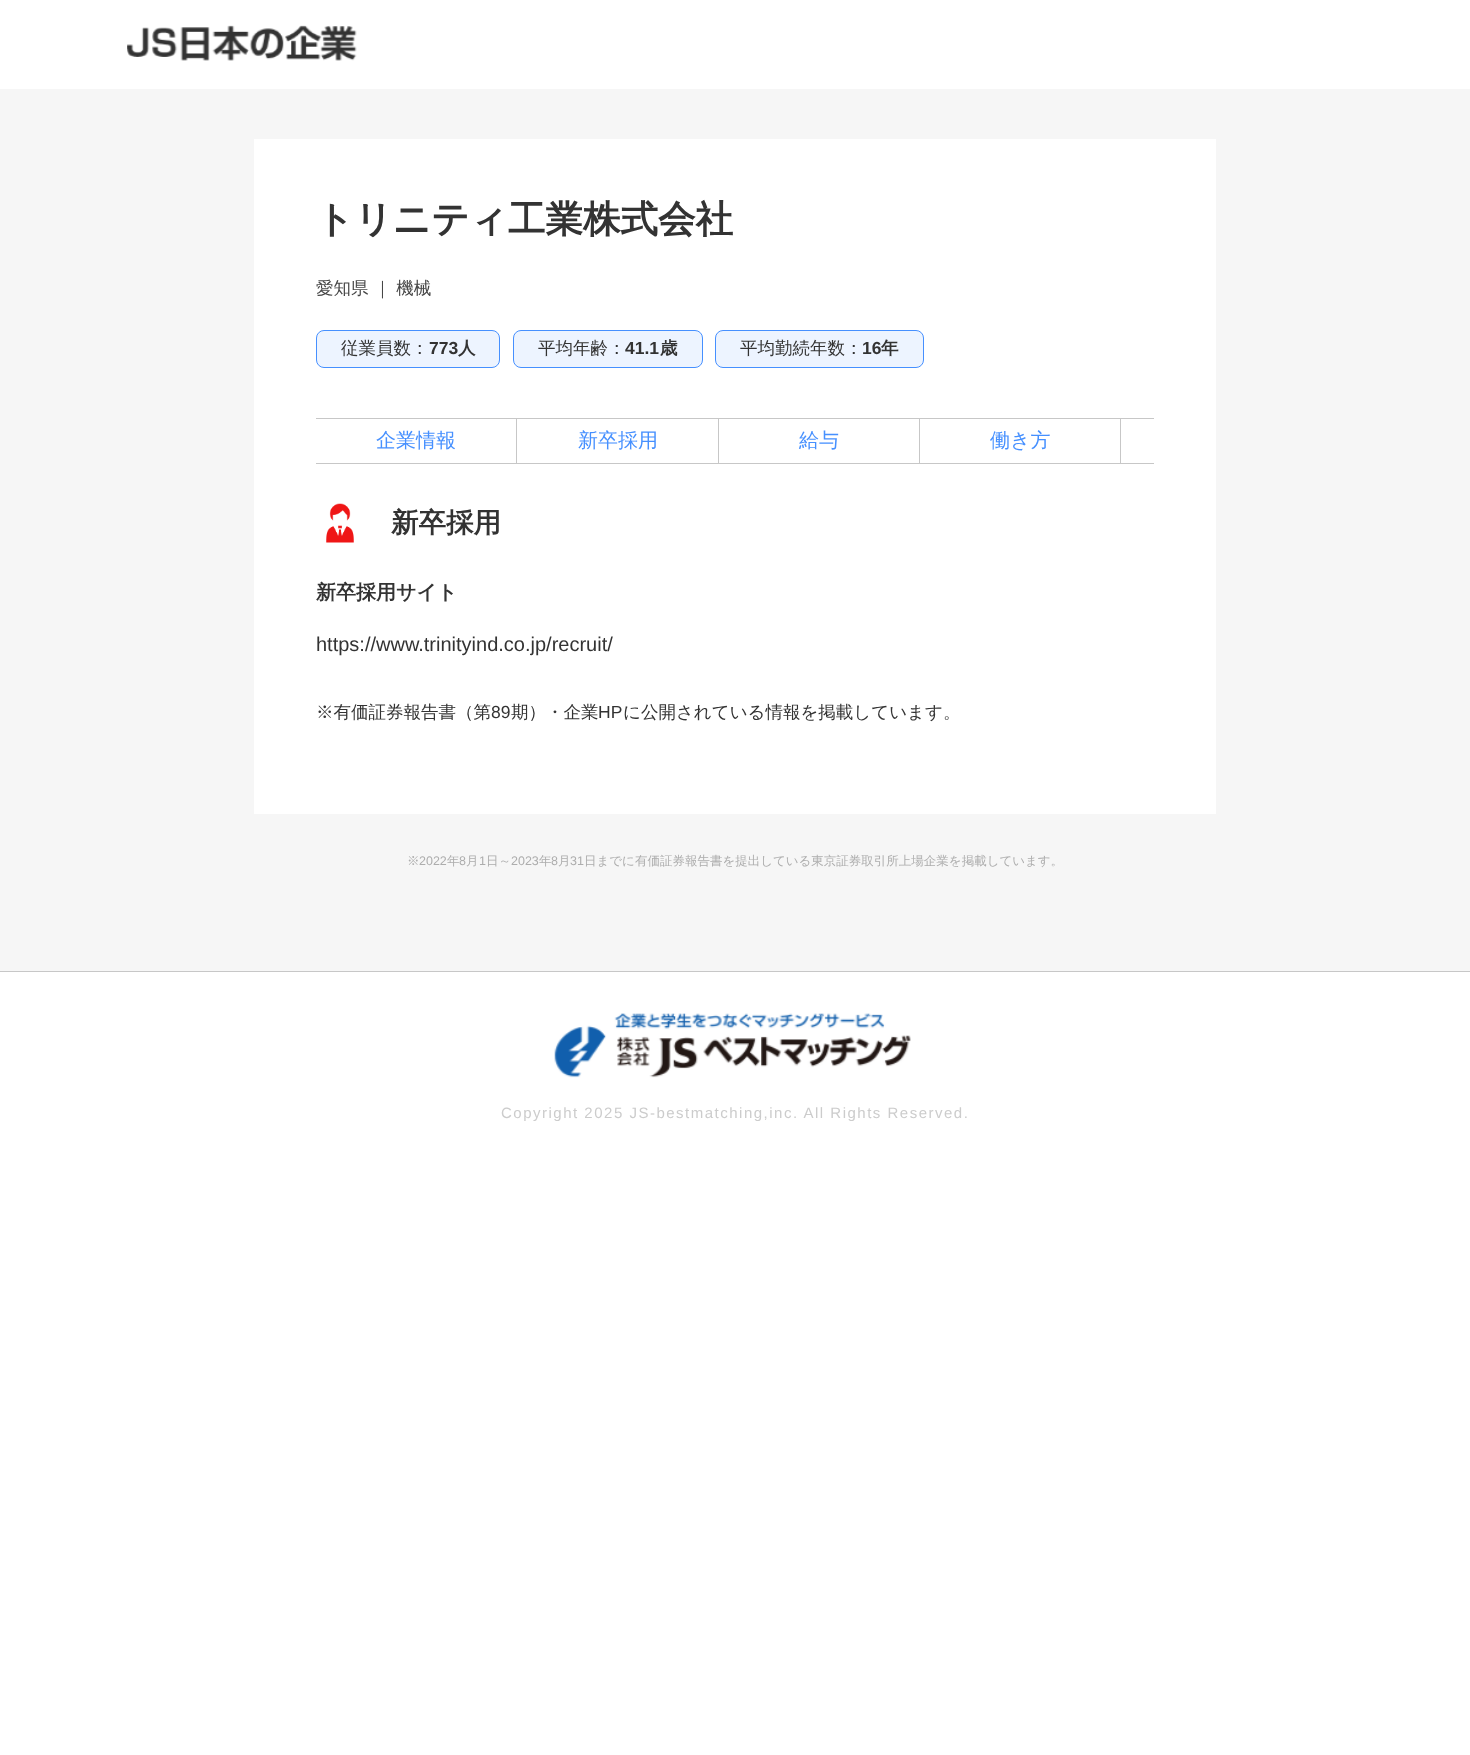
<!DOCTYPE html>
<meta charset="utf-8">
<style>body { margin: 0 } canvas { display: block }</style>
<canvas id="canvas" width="1470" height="1755"></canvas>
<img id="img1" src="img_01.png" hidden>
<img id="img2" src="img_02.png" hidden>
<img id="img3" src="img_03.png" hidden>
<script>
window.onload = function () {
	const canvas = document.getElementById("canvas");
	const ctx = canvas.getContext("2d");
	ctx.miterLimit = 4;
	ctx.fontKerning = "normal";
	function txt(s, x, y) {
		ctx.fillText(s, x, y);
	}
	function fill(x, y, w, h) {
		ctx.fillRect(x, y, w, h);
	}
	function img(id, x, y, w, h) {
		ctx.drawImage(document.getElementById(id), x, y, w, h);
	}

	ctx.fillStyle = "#FFFFFF";
	fill(0, 0, 1470, 1755);
	img("img1", 127, 25, 230, 36);
	ctx.fillStyle = "#F6F6F6";
	fill(0, 89, 1470, 882);
	ctx.fillStyle = "#FFFFFF";
	fill(254, 139, 962, 675);
	ctx.fillStyle = "#EDF4FF";
	ctx.beginPath();
	ctx.roundRect(316.5, 330.5, 183, 37, 7.5);
	ctx.fill();
	ctx.strokeStyle = "#4690FF";
	ctx.stroke();
	ctx.beginPath();
	ctx.roundRect(513.5, 330.5, 189, 37, 7.5);
	ctx.fill();
	ctx.stroke();
	ctx.beginPath();
	ctx.roundRect(715.5, 330.5, 208, 37, 7.5);
	ctx.fill();
	ctx.stroke();
	ctx.fillStyle = "#C7C7C7";
	fill(316, 418, 838, 1);
	fill(316, 463, 838, 1);
	fill(516, 419, 1, 44);
	fill(718, 419, 1, 44);
	fill(919, 419, 1, 44);
	fill(1120, 419, 1, 44);
	img("img2", 326, 503, 28, 40);
	fill(0, 971, 1470, 1);
	img("img3", 554, 1013, 357, 65);
	ctx.font = "bold 37.5px WenQuanYi Zen Hei";
	ctx.fillStyle = "#333333";
	txt("トリニティ工業株式会社", 316, 232);
	ctx.font = "500 17.5px WenQuanYi Zen Hei";
	ctx.fillStyle = "#464646";
	txt("愛知県 ｜ 機械", 316, 294);
	ctx.fillStyle = "#333333";
	txt("従業員数：", 341, 354);
	ctx.font = "bold 17.5px Liberation Sans";
	txt("773", 429, 354);
	ctx.font = "bold 17.5px WenQuanYi Zen Hei";
	txt("人", 458, 354);
	ctx.font = "500 17.5px WenQuanYi Zen Hei";
	txt("平均年齢：", 538, 354);
	ctx.font = "bold 17.5px Liberation Sans";
	txt("41.1", 625, 354);
	ctx.font = "bold 17.5px WenQuanYi Zen Hei";
	txt("歳", 660, 354);
	ctx.font = "500 17.5px WenQuanYi Zen Hei";
	txt("平均勤続年数：", 740, 354);
	ctx.font = "bold 17.5px Liberation Sans";
	txt("16", 862, 354);
	ctx.font = "bold 17.5px WenQuanYi Zen Hei";
	txt("年", 881, 354);
	ctx.font = "500 20px WenQuanYi Zen Hei";
	ctx.fillStyle = "#4690FF";
	txt("企業情報", 376, 447);
	txt("新卒採用", 578, 447);
	txt("給与", 799, 447);
	txt("働き方", 990, 447);
	ctx.font = "bold 27.5px WenQuanYi Zen Hei";
	ctx.fillStyle = "#333333";
	txt("新卒採用", 391, 532);
	ctx.font = "bold 20px WenQuanYi Zen Hei";
	txt("新卒採用サイト", 316, 599);
	ctx.font = "20px Liberation Sans";
	txt("https://www.trinityind.co.jp/recruit/", 316, 651);
	ctx.font = "500 17.5px WenQuanYi Zen Hei";
	txt("※有価証券報告書（第", 316, 718);
	ctx.font = "17.5px Liberation Sans";
	txt("89", 491, 718);
	ctx.font = "500 17.5px WenQuanYi Zen Hei";
	txt("期）・企業", 511, 718);
	ctx.font = "17.5px Liberation Sans";
	txt("HP", 598, 718);
	ctx.font = "500 17.5px WenQuanYi Zen Hei";
	txt("に公開されている情報を掲載しています。", 623, 718);
	ctx.font = "500 12.5px WenQuanYi Zen Hei";
	ctx.fillStyle = "#ADADAD";
	txt("※", 407, 865);
	ctx.font = "12.5px Liberation Sans";
	txt("2022", 419, 865);
	ctx.font = "500 12.5px WenQuanYi Zen Hei";
	txt("年", 447, 865);
	ctx.font = "12.5px Liberation Sans";
	txt("8", 459, 865);
	ctx.font = "500 12.5px WenQuanYi Zen Hei";
	txt("月", 466, 865);
	ctx.font = "12.5px Liberation Sans";
	txt("1", 479, 865);
	ctx.font = "500 12.5px WenQuanYi Zen Hei";
	txt("日～", 486, 865);
	ctx.font = "12.5px Liberation Sans";
	txt("2023", 511, 865);
	ctx.font = "500 12.5px WenQuanYi Zen Hei";
	txt("年", 539, 865);
	ctx.font = "12.5px Liberation Sans";
	txt("8", 551, 865);
	ctx.font = "500 12.5px WenQuanYi Zen Hei";
	txt("月", 558, 865);
	ctx.font = "12.5px Liberation Sans";
	txt("31", 570, 865);
	ctx.font = "500 12.5px WenQuanYi Zen Hei";
	txt("日までに有価証券報告書を提出している東京証券取引所上場企業を掲載しています。", 584, 865);
	ctx.letterSpacing = "1.5px";
	ctx.font = "15px Liberation Sans";
	ctx.fillStyle = "#CCCCCC";
	txt("Copyright 2025 JS-bestmatching,inc. All Rights Reserved.", 501, 1118);
};
</script>
